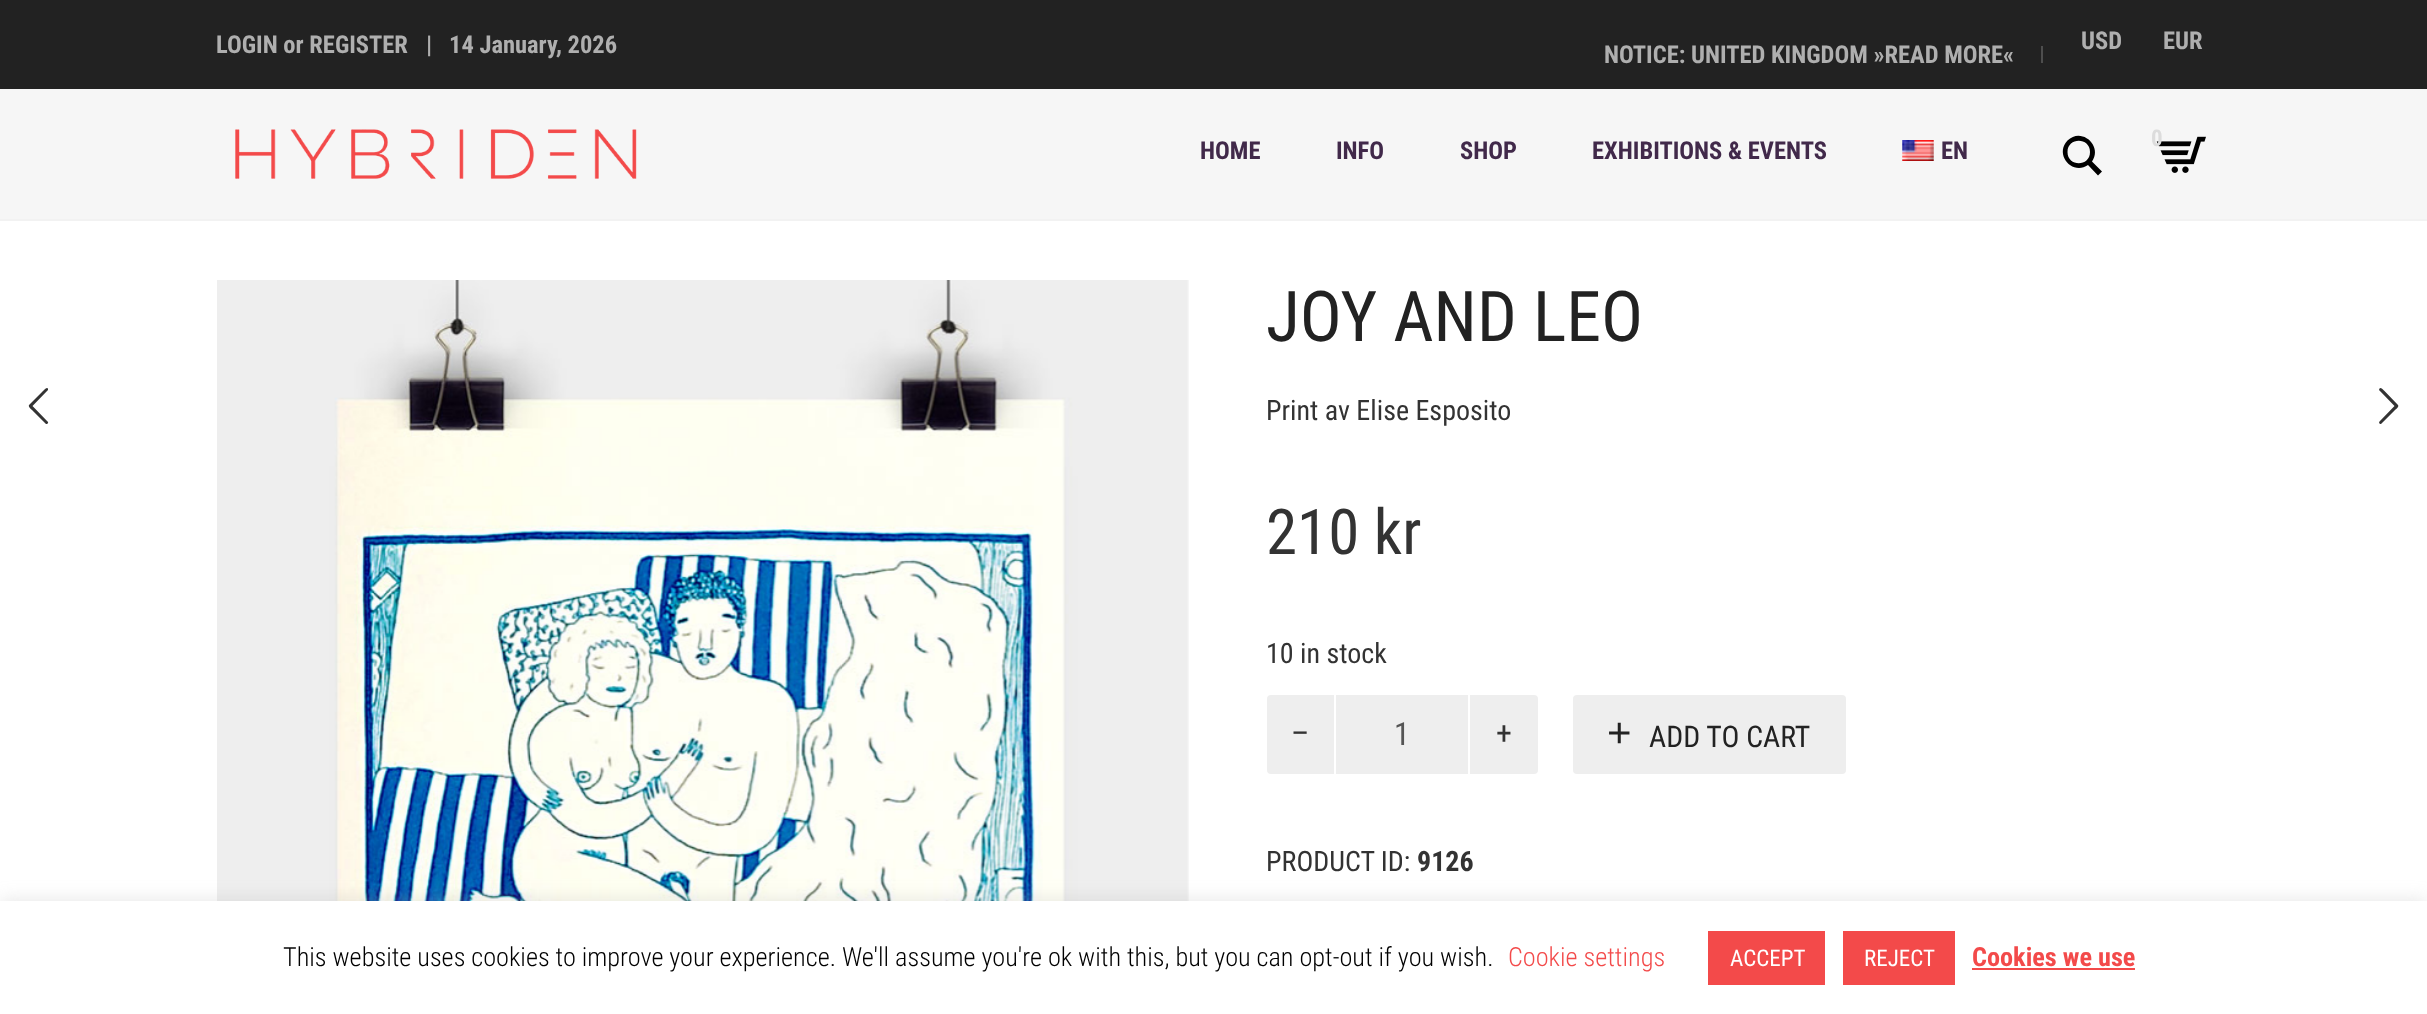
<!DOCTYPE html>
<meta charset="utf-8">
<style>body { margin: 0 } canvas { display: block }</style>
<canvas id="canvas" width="2427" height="1014"></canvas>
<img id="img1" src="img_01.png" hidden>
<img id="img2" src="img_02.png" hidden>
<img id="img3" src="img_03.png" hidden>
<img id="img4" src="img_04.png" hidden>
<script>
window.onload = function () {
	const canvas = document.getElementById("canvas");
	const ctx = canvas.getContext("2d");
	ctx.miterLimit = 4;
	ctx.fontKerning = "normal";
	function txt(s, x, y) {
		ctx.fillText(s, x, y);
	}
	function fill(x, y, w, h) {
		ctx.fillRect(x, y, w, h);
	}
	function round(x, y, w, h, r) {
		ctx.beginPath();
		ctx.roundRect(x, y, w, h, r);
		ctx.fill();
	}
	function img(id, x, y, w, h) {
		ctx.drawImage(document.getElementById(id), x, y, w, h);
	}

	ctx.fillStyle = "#FFFFFF";
	fill(0, 0, 2427, 1014);
	ctx.fillStyle = "#F2F2F2";
	fill(0, 219, 2427, 2);
	ctx.fillStyle = "#F6F6F6";
	fill(0, 89, 2427, 130);
	ctx.fillStyle = "#222222";
	fill(0, 0, 2427, 89);
	ctx.fillStyle = "#4E4E4E";
	fill(2041, 46, 2, 17);
	img("img1", 235, 129, 402, 50);
	ctx.fillStyle = "#000000";
	ctx.beginPath();
	ctx.moveTo(2102, 171.5);
	ctx.lineTo(2092, 161.5);
	ctx.bezierCurveTo(2103, 146, 2081.5, 126.5, 2067.5, 140.5);
	ctx.bezierCurveTo(2054, 154.5, 2072.5, 176, 2088, 165);
	ctx.lineTo(2098, 175.5);
	ctx.closePath();
	ctx.moveTo(2067.5, 152);
	ctx.bezierCurveTo(2067.5, 137, 2090, 137, 2090, 152);
	ctx.bezierCurveTo(2090, 167, 2067.5, 167, 2067.5, 152);
	ctx.closePath();
	ctx.fill();
	img("img2", 2156, 136, 50, 37);
	img("img3", 1902, 140, 32, 21);
	img("img4", 217, 280, 972, 621);
	ctx.fillStyle = "#EEEEEE";
	round(1267, 695, 271, 79, 4);
	ctx.fillStyle = "#FFFFFF";
	fill(1468, 695, 2, 79);
	fill(1334, 695, 2, 79);
	ctx.fillStyle = "#EEEEEE";
	round(1573, 695, 273, 79, 4);
	ctx.fillStyle = "#333333";
	ctx.beginPath();
	ctx.moveTo(47.5, 421.5);
	ctx.bezierCurveTo(49, 422.5, 47.5, 424.5, 46, 424);
	ctx.lineTo(32, 410);
	ctx.bezierCurveTo(31.5, 409.5, 28, 407, 29, 405);
	ctx.lineTo(43, 391);
	ctx.bezierCurveTo(43.5, 390.5, 46.5, 386.5, 48, 388.5);
	ctx.lineTo(48, 390);
	ctx.lineTo(32.5, 406);
	ctx.closePath();
	ctx.fill();
	ctx.beginPath();
	ctx.moveTo(2379.5, 421.5);
	ctx.bezierCurveTo(2378.5, 422.5, 2379.5, 424.5, 2381, 424);
	ctx.lineTo(2395, 410);
	ctx.bezierCurveTo(2395.5, 409.5, 2399.5, 407, 2398, 405);
	ctx.lineTo(2384.5, 391);
	ctx.bezierCurveTo(2384, 390.5, 2381, 386.5, 2379.5, 388.5);
	ctx.lineTo(2379, 390);
	ctx.lineTo(2394.5, 406);
	ctx.closePath();
	ctx.fill();
	ctx.fillStyle = "rgba(172, 171, 171, 0.3)";
	ctx.filter = "blur(9px)";
	ctx.beginPath();
	ctx.rect(0, 900, 2427, 113);
	ctx.fill();
	ctx.filter = "none";
	ctx.fillStyle = "#FFFFFF";
	fill(0, 901, 2427, 113);
	ctx.fillStyle = "#F34A4A";
	fill(1708, 931, 117, 54);
	fill(1843, 931, 112, 54);
	fill(1972, 968, 163, 2);
	ctx.font = "bold 24.5px Roboto Condensed";
	ctx.fillStyle = "#AFAFAF";
	txt("LOGIN or REGISTER", 216, 53);
	txt("|", 426, 53);
	txt("14 January, 2026", 449, 53);
	txt("USD", 2081, 49);
	txt("EUR", 2163, 49);
	txt("NOTICE: UNITED KINGDOM »READ MORE«", 1604, 63);
	ctx.font = "bold 23px Roboto Condensed";
	ctx.fillStyle = "#DCDCDC";
	txt("0", 2151, 146);
	ctx.font = "bold 24.5px Roboto Condensed";
	ctx.fillStyle = "#41294A";
	txt("HOME", 1200, 159);
	txt("INFO", 1336, 159);
	txt("SHOP", 1460, 159);
	txt("EXHIBITIONS & EVENTS", 1592, 159);
	txt("EN", 1941, 159);
	ctx.font = "70px Roboto Condensed";
	ctx.fillStyle = "#222222";
	txt("JOY AND LEO", 1266, 341);
	ctx.font = "28px Roboto Condensed";
	ctx.fillStyle = "#333333";
	txt("Print av Elise Esposito", 1266, 420);
	ctx.font = "63px Roboto Condensed";
	txt("210 kr", 1266, 554);
	ctx.font = "28px Roboto Condensed";
	txt("10 in stock", 1266, 663);
	ctx.font = "32px Roboto Condensed";
	txt("–", 1291, 744);
	ctx.fillStyle = "#555555";
	txt("1", 1394, 745);
	ctx.fillStyle = "#333333";
	txt("+", 1496, 744);
	ctx.font = "42px Liberation Sans";
	ctx.fillStyle = "#222222";
	txt("+", 1607, 747);
	ctx.font = "29.75px Roboto Condensed";
	txt("ADD TO CART", 1649, 747);
	ctx.font = "28px Roboto Condensed";
	ctx.fillStyle = "#333333";
	txt("PRODUCT ID:", 1266, 871);
	ctx.font = "bold 28px Roboto Condensed";
	txt("9126", 1417, 871);
	ctx.font = "300 26.25px Roboto Condensed";
	ctx.fillStyle = "#000000";
	txt("This website uses cookies to improve your experience. We'll assume you're ok with this, but you can opt-out if you wish.", 283, 966);
	ctx.fillStyle = "#F34A4A";
	txt("Cookie settings", 1508, 966);
	ctx.font = "23px Roboto Condensed";
	ctx.fillStyle = "#FFFFFF";
	txt("ACCEPT", 1730, 966);
	txt("REJECT", 1864, 966);
	ctx.font = "bold 26.25px Roboto Condensed";
	ctx.fillStyle = "#F34A4A";
	txt("Cookies we use", 1972, 966);
};
</script>
